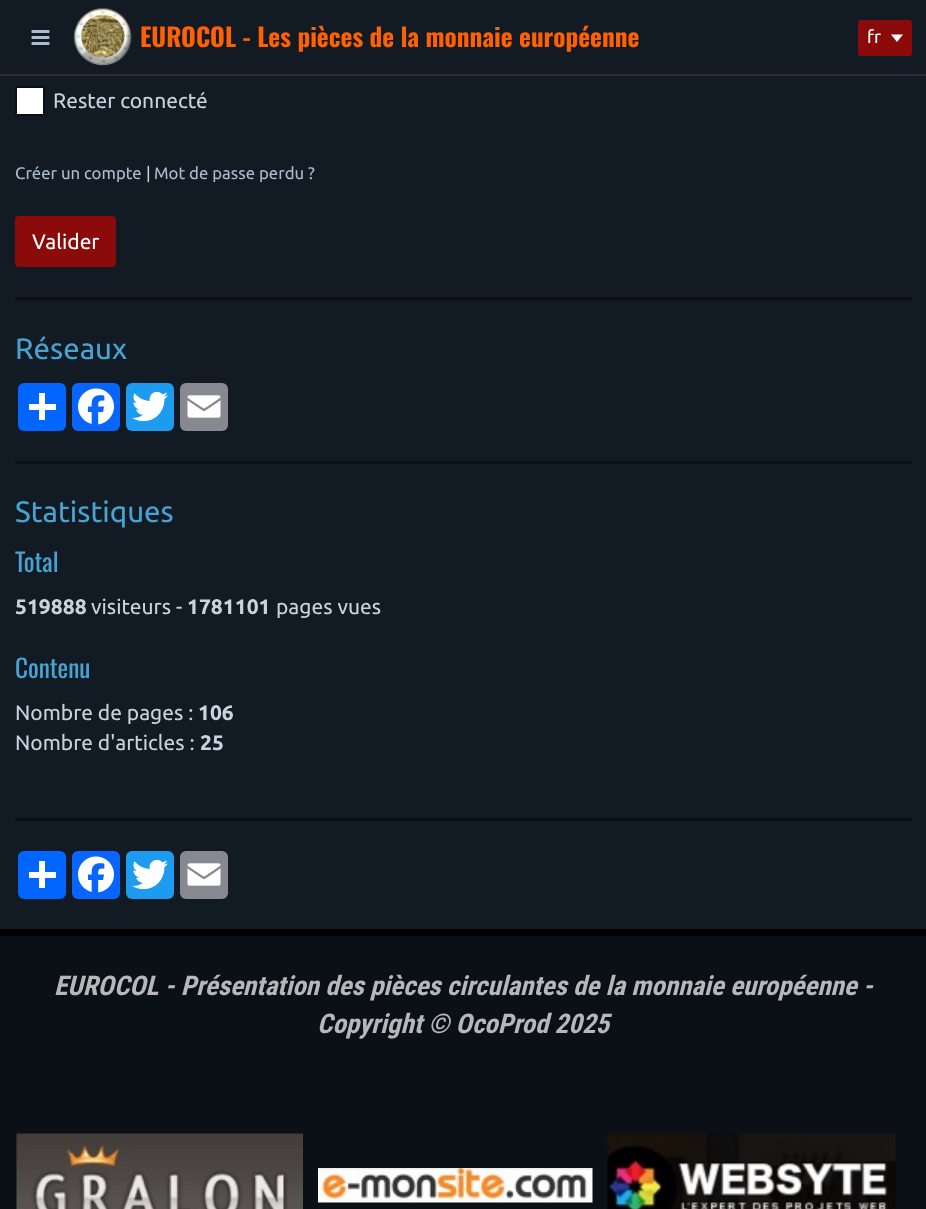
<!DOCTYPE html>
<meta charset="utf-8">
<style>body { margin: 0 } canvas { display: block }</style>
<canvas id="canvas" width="926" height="1209"></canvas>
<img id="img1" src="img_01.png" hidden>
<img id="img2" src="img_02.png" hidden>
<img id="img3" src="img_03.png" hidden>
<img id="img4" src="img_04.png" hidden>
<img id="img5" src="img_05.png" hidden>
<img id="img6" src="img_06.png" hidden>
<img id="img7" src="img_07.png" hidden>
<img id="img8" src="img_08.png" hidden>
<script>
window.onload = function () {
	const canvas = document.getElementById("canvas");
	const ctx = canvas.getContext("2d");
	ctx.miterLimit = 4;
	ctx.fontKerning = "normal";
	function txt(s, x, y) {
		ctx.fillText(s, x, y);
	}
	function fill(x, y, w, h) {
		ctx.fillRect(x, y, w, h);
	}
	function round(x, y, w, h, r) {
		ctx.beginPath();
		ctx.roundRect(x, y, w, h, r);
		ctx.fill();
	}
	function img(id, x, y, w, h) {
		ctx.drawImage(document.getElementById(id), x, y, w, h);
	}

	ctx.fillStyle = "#121B24";
	fill(0, 0, 926, 1209);
	ctx.fillStyle = "#282E33";
	fill(0, 74, 926, 2);
	img("img1", 31, 30, 19, 15);
	img("img2", 73, 8, 59, 58);
	ctx.fillStyle = "#8B0A0A";
	round(858, 20, 54, 36, 3);
	ctx.fillStyle = "#FFFFFF";
	ctx.beginPath();
	ctx.moveTo(891, 34.5);
	ctx.lineTo(903, 34.5);
	ctx.lineTo(897, 42);
	ctx.closePath();
	ctx.fill();
	ctx.fillStyle = "#0B1016";
	fill(15, 297, 897, 3);
	ctx.fillStyle = "#FFFFFF";
	ctx.beginPath();
	ctx.rect(16, 87, 28, 28);
	ctx.fill();
	ctx.strokeStyle = "#0B1016";
	ctx.lineWidth = 2;
	ctx.stroke();
	ctx.fillStyle = "#8B0A0A";
	round(15, 216, 101, 51, 4);
	ctx.fillStyle = "#0B1016";
	fill(15, 461, 897, 3);
	ctx.fillStyle = "#0166FF";
	round(18, 383, 48, 48, 6);
	ctx.fillStyle = "#FFFFFF";
	fill(39, 393, 6, 27);
	fill(29, 404, 27, 6);
	ctx.fillStyle = "#0866FF";
	round(72, 383, 48, 48, 6);
	img("img3", 78, 388, 36, 37);
	ctx.fillStyle = "#1D9BF0";
	round(126, 383, 48, 48, 6);
	img("img4", 132, 391, 36, 31);
	ctx.fillStyle = "#888990";
	round(180, 383, 48, 48, 6);
	img("img5", 187, 395, 34, 23);
	ctx.fillStyle = "#0B1016";
	fill(15, 818, 897, 3);
	ctx.fillStyle = "#0166FF";
	round(18, 851, 48, 48, 6);
	ctx.fillStyle = "#FFFFFF";
	fill(39, 861, 6, 27);
	fill(29, 872, 27, 6);
	ctx.fillStyle = "#0866FF";
	round(72, 851, 48, 48, 6);
	img("img3", 78, 856, 36, 37);
	ctx.fillStyle = "#1D9BF0";
	round(126, 851, 48, 48, 6);
	img("img4", 132, 859, 36, 31);
	ctx.fillStyle = "#888990";
	round(180, 851, 48, 48, 6);
	img("img5", 187, 863, 34, 23);
	ctx.fillStyle = "#000000";
	fill(0, 929, 926, 7);
	ctx.fillStyle = "#0B1016";
	fill(0, 936, 926, 273);
	img("img6", 16, 1133, 287, 76);
	img("img7", 318, 1168, 275, 35);
	img("img8", 607, 1133, 289, 76);
	ctx.font = "bold 25.25px Oswald";
	ctx.fillStyle = "#FF6000";
	txt("EUROCOL - Les pièces de la monnaie européenne", 140, 47);
	ctx.font = "18px Ubuntu";
	ctx.fillStyle = "#FFFFFF";
	txt("fr", 867, 43);
	ctx.font = "21px Ubuntu";
	ctx.fillStyle = "#C9D3DD";
	txt("Rester connecté", 53, 108);
	ctx.font = "16.75px Ubuntu";
	ctx.fillStyle = "#AABDD0";
	txt("Créer un compte", 15, 179);
	ctx.fillStyle = "#C9D3DD";
	txt("|", 146, 179);
	ctx.fillStyle = "#AABDD0";
	txt("Mot de passe perdu ?", 154, 179);
	ctx.font = "21px Ubuntu";
	ctx.fillStyle = "#FFFFFF";
	txt("Valider", 32, 249);
	ctx.font = "29.5px Ubuntu";
	ctx.fillStyle = "#48A2D2";
	txt("Réseaux", 15, 359);
	txt("Statistiques", 15, 522);
	ctx.font = "25.25px Oswald";
	txt("Total", 15, 572);
	ctx.font = "bold 21px Ubuntu";
	ctx.fillStyle = "#C9D3DD";
	txt("519888", 15, 614);
	ctx.font = "21px Ubuntu";
	txt("visiteurs -", 91, 614);
	ctx.font = "bold 21px Ubuntu";
	txt("1781101", 187, 614);
	ctx.font = "21px Ubuntu";
	txt("pages vues", 276, 614);
	ctx.font = "25.25px Oswald";
	ctx.fillStyle = "#48A2D2";
	txt("Contenu", 15, 678);
	ctx.font = "21px Ubuntu";
	ctx.fillStyle = "#C9D3DD";
	txt("Nombre de pages :", 15, 720);
	ctx.font = "bold 21px Ubuntu";
	txt("106", 198, 720);
	ctx.font = "21px Ubuntu";
	txt("Nombre d'articles :", 15, 750);
	ctx.font = "bold 21px Ubuntu";
	txt("25", 200, 750);
	ctx.font = "italic bold 27px Roboto Condensed";
	ctx.fillStyle = "#B6B7B9";
	txt("EUROCOL - Présentation des pièces circulantes de la monnaie européenne -", 54, 995);
	txt("Copyright © OcoProd 2025", 317, 1033);
};
</script>
